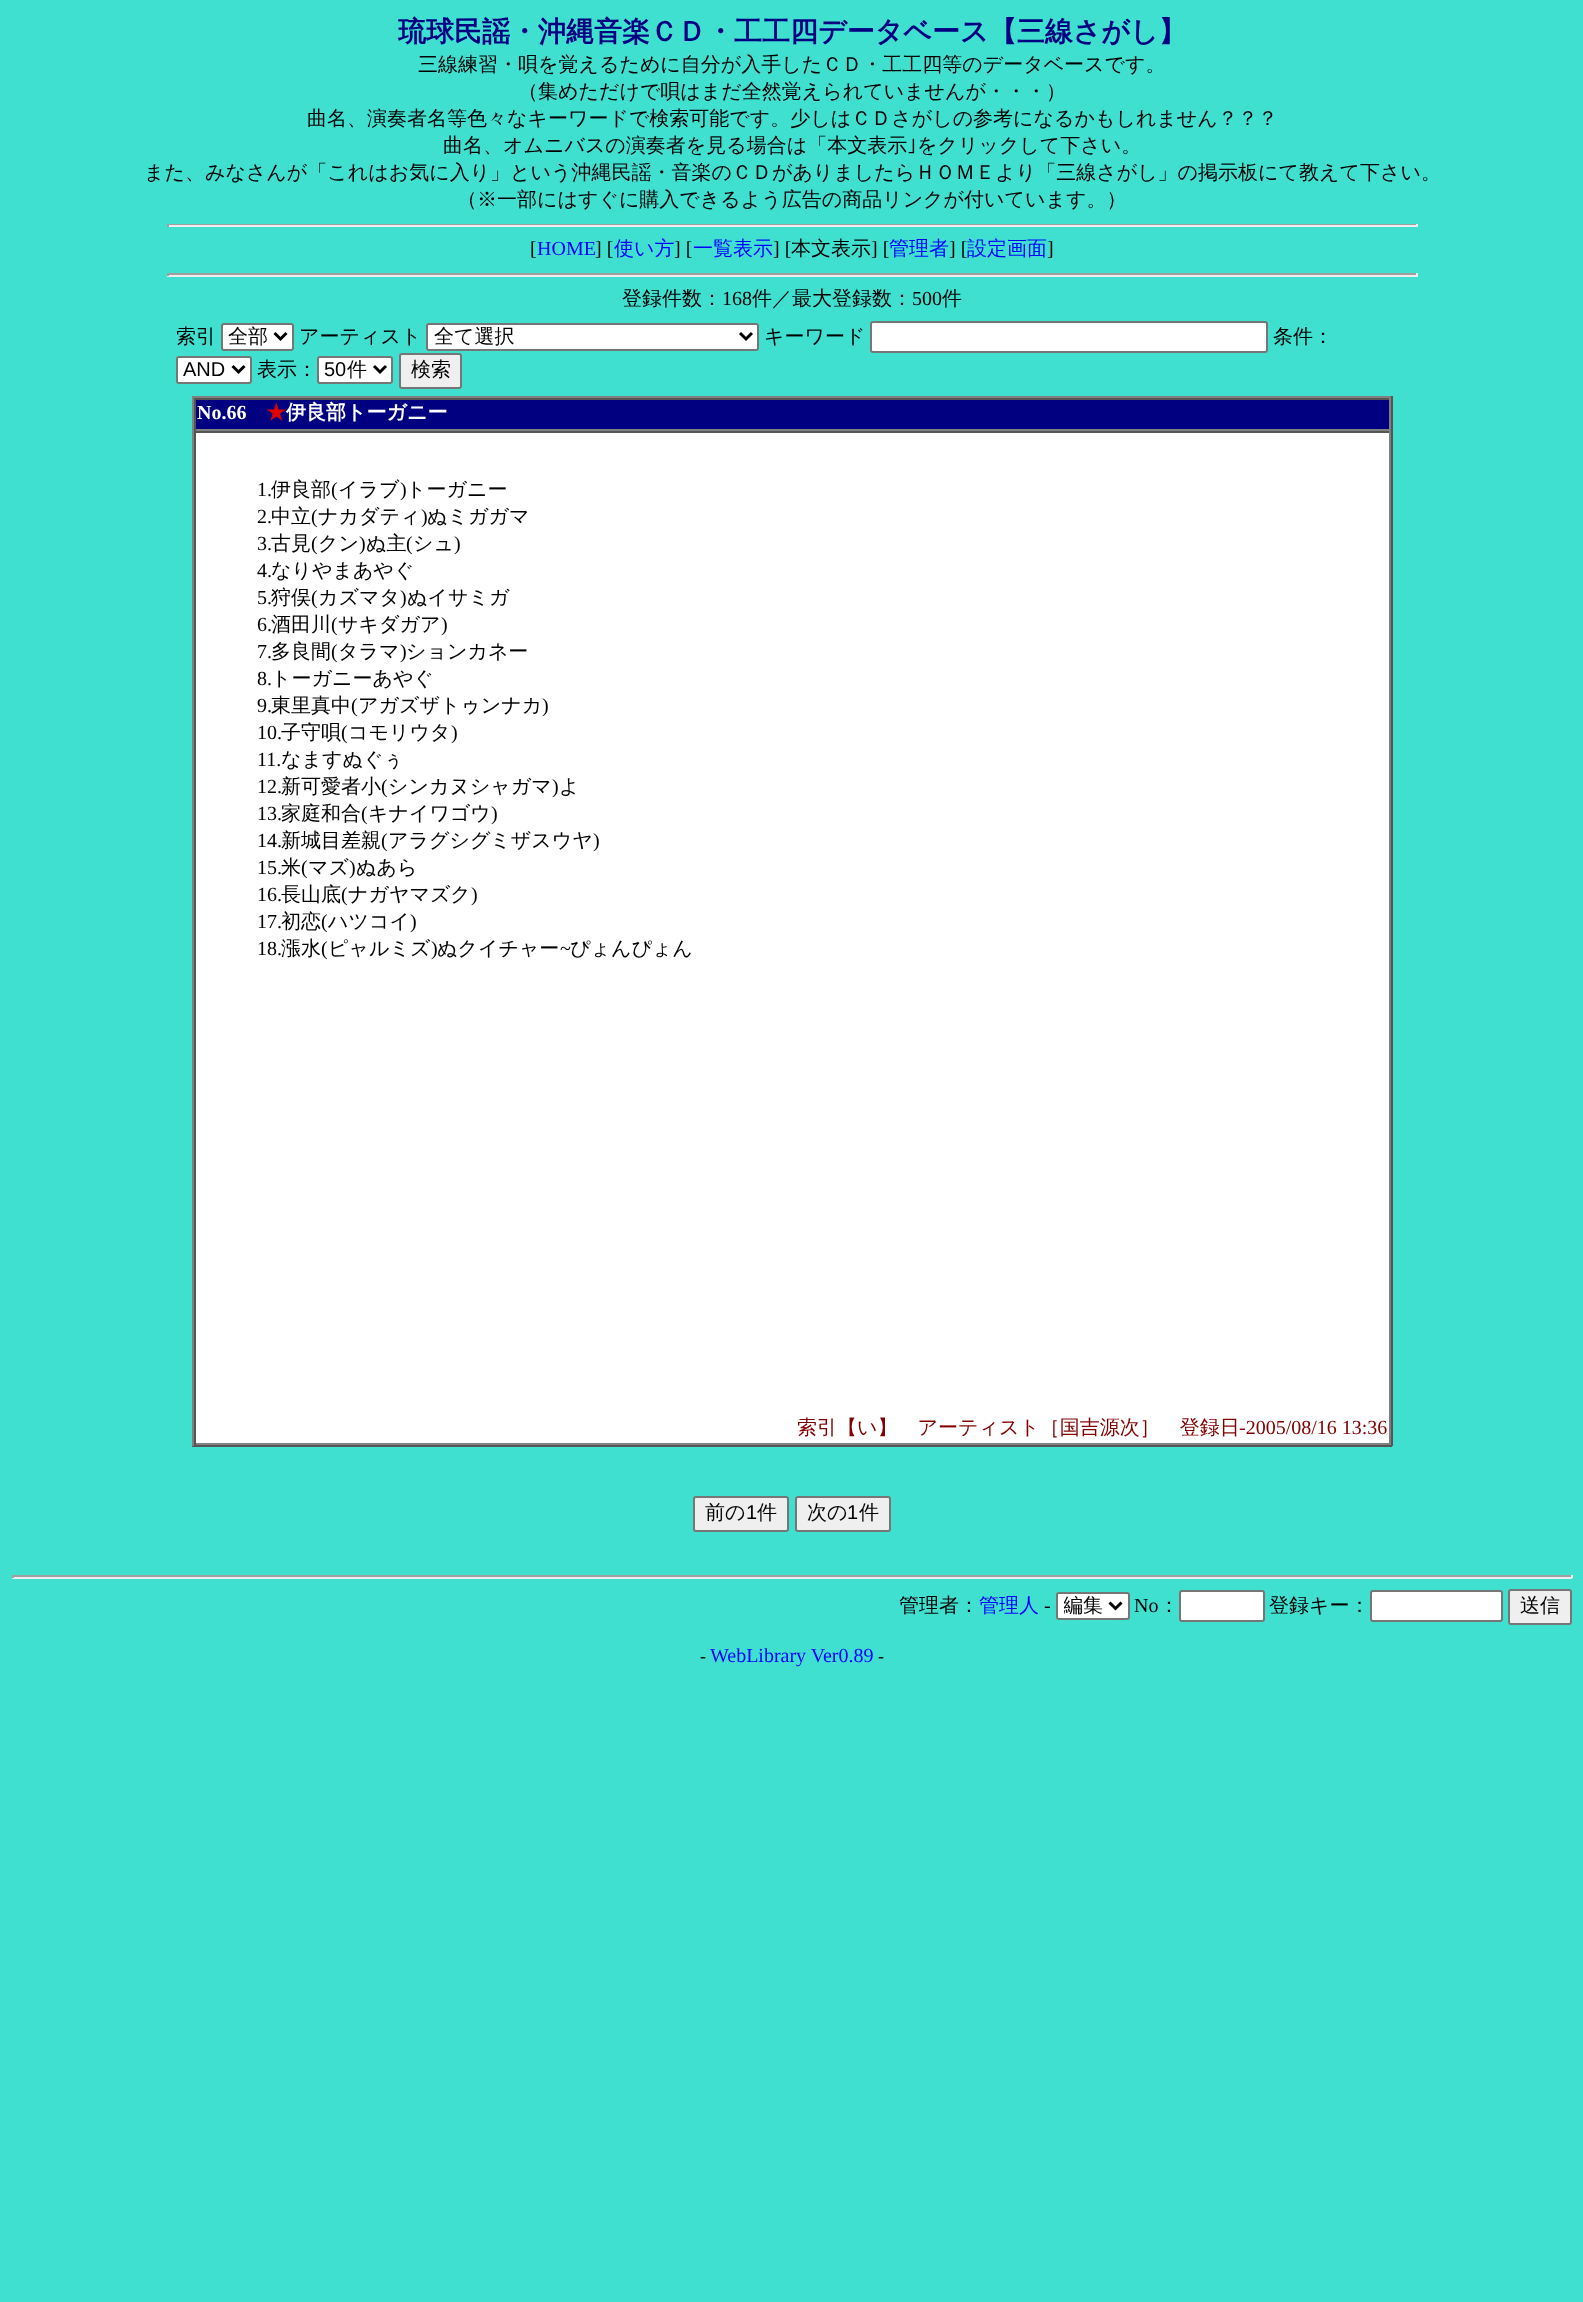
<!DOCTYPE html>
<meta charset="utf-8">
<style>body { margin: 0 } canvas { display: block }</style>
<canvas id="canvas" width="1583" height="2302"></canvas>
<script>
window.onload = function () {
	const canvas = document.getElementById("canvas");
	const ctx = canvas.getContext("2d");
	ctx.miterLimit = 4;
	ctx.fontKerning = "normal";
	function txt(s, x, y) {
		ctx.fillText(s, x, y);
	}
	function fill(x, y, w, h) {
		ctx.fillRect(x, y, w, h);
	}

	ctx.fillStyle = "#40E0D0";
	fill(0, 0, 1583, 2302);
	ctx.fillStyle = "#9F9F9F";
	fill(167, 224, 1251, 1);
	ctx.fillStyle = "#EEEEEE";
	fill(1416, 224, 2, 3);
	fill(167, 225, 1251, 2);
	ctx.fillStyle = "#9F9F9F";
	fill(167, 224, 2, 3);
	fill(167, 273, 1251, 2);
	ctx.fillStyle = "#EEEEEE";
	fill(1416, 273, 2, 3);
	fill(167, 275, 1251, 2);
	ctx.fillStyle = "#9F9F9F";
	fill(167, 273, 2, 3);
	ctx.fillStyle = "#FFFFFF";
	ctx.beginPath();
	ctx.roundRect(222, 324, 71, 26, 2);
	ctx.fill();
	ctx.strokeStyle = "#767676";
	ctx.lineWidth = 2;
	ctx.stroke();
	ctx.beginPath();
	ctx.moveTo(274.5, 333);
	ctx.lineTo(280.5, 339);
	ctx.lineTo(286.5, 333);
	ctx.strokeStyle = "#000000";
	ctx.lineWidth = 3;
	ctx.stroke();
	ctx.beginPath();
	ctx.roundRect(427, 324, 331, 26, 2);
	ctx.fill();
	ctx.strokeStyle = "#767676";
	ctx.lineWidth = 2;
	ctx.stroke();
	ctx.beginPath();
	ctx.moveTo(740, 333);
	ctx.lineTo(746, 339);
	ctx.lineTo(752, 333);
	ctx.strokeStyle = "#000000";
	ctx.lineWidth = 3;
	ctx.stroke();
	ctx.beginPath();
	ctx.roundRect(871, 322, 396, 30, 2);
	ctx.fill();
	ctx.strokeStyle = "#767676";
	ctx.lineWidth = 2;
	ctx.stroke();
	ctx.beginPath();
	ctx.roundRect(177, 357, 74, 26, 2);
	ctx.fill();
	ctx.stroke();
	ctx.beginPath();
	ctx.moveTo(232.5, 366);
	ctx.lineTo(238.5, 372);
	ctx.lineTo(244.5, 366);
	ctx.strokeStyle = "#000000";
	ctx.lineWidth = 3;
	ctx.stroke();
	ctx.beginPath();
	ctx.roundRect(318, 357, 74, 26, 2);
	ctx.fill();
	ctx.strokeStyle = "#767676";
	ctx.lineWidth = 2;
	ctx.stroke();
	ctx.beginPath();
	ctx.moveTo(374, 366);
	ctx.lineTo(380, 372);
	ctx.lineTo(386, 366);
	ctx.strokeStyle = "#000000";
	ctx.lineWidth = 3;
	ctx.stroke();
	ctx.fillStyle = "#EFEFEF";
	ctx.beginPath();
	ctx.roundRect(400, 354, 61, 34, 2);
	ctx.fill();
	ctx.strokeStyle = "#767676";
	ctx.lineWidth = 2;
	ctx.stroke();
	ctx.fillStyle = "#FFFFFF";
	fill(196, 433, 1193, 1010);
	ctx.fillStyle = "#808080";
	fill(192, 396, 1200, 2);
	ctx.fillStyle = "#555555";
	fill(1391, 396, 2, 1050);
	fill(192, 1445, 1200, 2);
	ctx.fillStyle = "#808080";
	fill(192, 396, 2, 1050);
	ctx.fillStyle = "#000080";
	fill(196, 400, 1193, 29);
	ctx.fillStyle = "#555555";
	fill(194, 398, 1197, 2);
	ctx.fillStyle = "#808080";
	fill(1389, 398, 2, 33);
	fill(194, 429, 1197, 2);
	ctx.fillStyle = "#555555";
	fill(194, 398, 2, 33);
	fill(194, 431, 1197, 2);
	ctx.fillStyle = "#808080";
	fill(1389, 431, 2, 1014);
	fill(194, 1443, 1197, 2);
	ctx.fillStyle = "#555555";
	fill(194, 431, 2, 1014);
	ctx.fillStyle = "#EFEFEF";
	ctx.beginPath();
	ctx.roundRect(694, 1497, 94, 34, 2);
	ctx.fill();
	ctx.stroke();
	ctx.beginPath();
	ctx.roundRect(796, 1497, 94, 34, 2);
	ctx.fill();
	ctx.stroke();
	ctx.fillStyle = "#9F9F9F";
	fill(12, 1575, 1560, 2);
	ctx.fillStyle = "#EEEEEE";
	fill(1571, 1575, 2, 3);
	fill(12, 1577, 1560, 2);
	ctx.fillStyle = "#9F9F9F";
	fill(12, 1575, 2, 3);
	ctx.fillStyle = "#FFFFFF";
	ctx.beginPath();
	ctx.roundRect(1057, 1593, 72, 26, 2);
	ctx.fill();
	ctx.stroke();
	ctx.beginPath();
	ctx.moveTo(1109.5, 1602.5);
	ctx.lineTo(1115.5, 1608.5);
	ctx.lineTo(1121.5, 1602.5);
	ctx.strokeStyle = "#000000";
	ctx.lineWidth = 3;
	ctx.stroke();
	ctx.beginPath();
	ctx.roundRect(1180, 1591, 84, 30, 2);
	ctx.fill();
	ctx.strokeStyle = "#767676";
	ctx.lineWidth = 2;
	ctx.stroke();
	ctx.beginPath();
	ctx.roundRect(1371, 1591, 131, 30, 2);
	ctx.fill();
	ctx.stroke();
	ctx.fillStyle = "#EFEFEF";
	ctx.beginPath();
	ctx.roundRect(1509, 1590, 62, 34, 2);
	ctx.fill();
	ctx.stroke();
	ctx.font = "bold 28px WenQuanYi Zen Hei";
	ctx.fillStyle = "#000080";
	txt("琉球民謡・沖縄音楽ＣＤ・工工四データベース【三線さがし】", 398, 41);
	ctx.font = "500 20px WenQuanYi Zen Hei";
	ctx.fillStyle = "#000000";
	txt("三線練習・唄を覚えるために自分が入手したＣＤ・工工四等のデータベースです。", 418, 71);
	txt("（集めただけで唄はまだ全然覚えられていませんが・・・）", 518, 98);
	txt("曲名、演奏者名等色々なキーワードで検索可能です。少しはＣＤさがしの参考になるかもしれません？？？", 307, 125);
	txt("曲名、オムニバスの演奏者を見る場合は「本文表示", 443, 152);
	ctx.font = "20px IPAGothic";
	txt("｣", 907, 152);
	ctx.font = "500 20px WenQuanYi Zen Hei";
	txt("をクリックして下さい。", 917, 152);
	txt("また、みなさんが「これはお気に入り」という沖縄民謡・音楽のＣＤがありましたらＨＯＭＥより「三線さがし」の掲示板にて教えて下さい。", 144, 179);
	txt("（※一部にはすぐに購入できるよう広告の商品リンクが付いています。）", 457, 206);
	ctx.font = "20px Liberation Serif";
	txt("[", 530, 255);
	ctx.fillStyle = "#0000FF";
	txt("HOME", 537, 255);
	ctx.fillStyle = "#000000";
	txt("] [", 595, 255);
	ctx.font = "500 20px WenQuanYi Zen Hei";
	ctx.fillStyle = "#0000FF";
	txt("使い方", 614, 255);
	ctx.font = "20px Liberation Serif";
	ctx.fillStyle = "#000000";
	txt("] [", 674, 255);
	ctx.font = "500 20px WenQuanYi Zen Hei";
	ctx.fillStyle = "#0000FF";
	txt("一覧表示", 693, 255);
	ctx.font = "20px Liberation Serif";
	ctx.fillStyle = "#000000";
	txt("] [", 773, 255);
	ctx.font = "500 20px WenQuanYi Zen Hei";
	txt("本文表示", 791, 255);
	ctx.font = "20px Liberation Serif";
	txt("] [", 871, 255);
	ctx.font = "500 20px WenQuanYi Zen Hei";
	ctx.fillStyle = "#0000FF";
	txt("管理者", 889, 255);
	ctx.font = "20px Liberation Serif";
	ctx.fillStyle = "#000000";
	txt("] [", 949, 255);
	ctx.font = "500 20px WenQuanYi Zen Hei";
	ctx.fillStyle = "#0000FF";
	txt("設定画面", 967, 255);
	ctx.font = "20px Liberation Serif";
	ctx.fillStyle = "#000000";
	txt("]", 1047, 255);
	ctx.font = "500 20px WenQuanYi Zen Hei";
	txt("登録件数：", 622, 305);
	ctx.font = "20px Liberation Serif";
	txt("168", 722, 305);
	ctx.font = "500 20px WenQuanYi Zen Hei";
	txt("件／最大登録数：", 752, 305);
	ctx.font = "20px Liberation Serif";
	txt("500", 912, 305);
	ctx.font = "500 20px WenQuanYi Zen Hei";
	txt("件", 942, 305);
	txt("索引", 176, 343);
	txt("全部", 228, 343);
	txt("アーティスト", 299, 343);
	txt("全て選択", 434, 343);
	txt("キーワード", 764, 343);
	txt("条件：", 1273, 343);
	ctx.font = "20px Liberation Sans";
	txt("AND", 183, 376);
	ctx.font = "500 20px WenQuanYi Zen Hei";
	txt("表示：", 257, 376);
	ctx.font = "20px Liberation Sans";
	txt("50", 324, 376);
	ctx.font = "500 20px WenQuanYi Zen Hei";
	txt("件", 347, 376);
	txt("検索", 411, 376);
	ctx.font = "bold 20px Liberation Serif";
	ctx.fillStyle = "#FFFFFF";
	txt("No.66", 197, 419);
	ctx.font = "bold 20px WenQuanYi Zen Hei";
	ctx.fillStyle = "#DF0000";
	txt("★", 266, 419);
	ctx.fillStyle = "#FFFFFF";
	txt("伊良部トーガニー", 286, 419);
	ctx.font = "20px Liberation Serif";
	ctx.fillStyle = "#000000";
	txt("1.", 257, 496);
	ctx.font = "500 20px WenQuanYi Zen Hei";
	txt("伊良部", 271, 496);
	ctx.font = "20px Liberation Serif";
	txt("(", 331, 496);
	ctx.font = "500 20px WenQuanYi Zen Hei";
	txt("イラブ", 338, 496);
	ctx.font = "20px Liberation Serif";
	txt(")", 400, 496);
	ctx.font = "500 20px WenQuanYi Zen Hei";
	txt("トーガニー", 406, 496);
	ctx.font = "20px Liberation Serif";
	txt("2.", 257, 523);
	ctx.font = "500 20px WenQuanYi Zen Hei";
	txt("中立", 271, 523);
	ctx.font = "20px Liberation Serif";
	txt("(", 311, 523);
	ctx.font = "500 20px WenQuanYi Zen Hei";
	txt("ナカダティ", 318, 523);
	ctx.font = "20px Liberation Serif";
	txt(")", 421, 523);
	ctx.font = "500 20px WenQuanYi Zen Hei";
	txt("ぬミガガマ", 427, 523);
	ctx.font = "20px Liberation Serif";
	txt("3.", 257, 550);
	ctx.font = "500 20px WenQuanYi Zen Hei";
	txt("古見", 271, 550);
	ctx.font = "20px Liberation Serif";
	txt("(", 311, 550);
	ctx.font = "500 20px WenQuanYi Zen Hei";
	txt("クン", 318, 550);
	ctx.font = "20px Liberation Serif";
	txt(")", 359, 550);
	ctx.font = "500 20px WenQuanYi Zen Hei";
	txt("ぬ主", 366, 550);
	ctx.font = "20px Liberation Serif";
	txt("(", 406, 550);
	ctx.font = "500 20px WenQuanYi Zen Hei";
	txt("シュ", 413, 550);
	ctx.font = "20px Liberation Serif";
	txt(")", 454, 550);
	txt("4.", 257, 577);
	ctx.font = "500 20px WenQuanYi Zen Hei";
	txt("なりやまあやぐ", 271, 577);
	ctx.font = "20px Liberation Serif";
	txt("5.", 257, 604);
	ctx.font = "500 20px WenQuanYi Zen Hei";
	txt("狩俣", 271, 604);
	ctx.font = "20px Liberation Serif";
	txt("(", 311, 604);
	ctx.font = "500 20px WenQuanYi Zen Hei";
	txt("カズマタ", 318, 604);
	ctx.font = "20px Liberation Serif";
	txt(")", 400, 604);
	ctx.font = "500 20px WenQuanYi Zen Hei";
	txt("ぬイサミガ", 407, 604);
	ctx.font = "20px Liberation Serif";
	txt("6.", 257, 631);
	ctx.font = "500 20px WenQuanYi Zen Hei";
	txt("酒田川", 271, 631);
	ctx.font = "20px Liberation Serif";
	txt("(", 331, 631);
	ctx.font = "500 20px WenQuanYi Zen Hei";
	txt("サキダガア", 338, 631);
	ctx.font = "20px Liberation Serif";
	txt(")", 441, 631);
	txt("7.", 257, 658);
	ctx.font = "500 20px WenQuanYi Zen Hei";
	txt("多良間", 271, 658);
	ctx.font = "20px Liberation Serif";
	txt("(", 331, 658);
	ctx.font = "500 20px WenQuanYi Zen Hei";
	txt("タラマ", 338, 658);
	ctx.font = "20px Liberation Serif";
	txt(")", 400, 658);
	ctx.font = "500 20px WenQuanYi Zen Hei";
	txt("ションカネー", 406, 658);
	ctx.font = "20px Liberation Serif";
	txt("8.", 257, 685);
	ctx.font = "500 20px WenQuanYi Zen Hei";
	txt("トーガニーあやぐ", 271, 685);
	ctx.font = "20px Liberation Serif";
	txt("9.", 257, 712);
	ctx.font = "500 20px WenQuanYi Zen Hei";
	txt("東里真中", 271, 712);
	ctx.font = "20px Liberation Serif";
	txt("(", 351, 712);
	ctx.font = "500 20px WenQuanYi Zen Hei";
	txt("アガズザトゥンナカ", 358, 712);
	ctx.font = "20px Liberation Serif";
	txt(")", 542, 712);
	txt("10.", 257, 739);
	ctx.font = "500 20px WenQuanYi Zen Hei";
	txt("子守唄", 281, 739);
	ctx.font = "20px Liberation Serif";
	txt("(", 341, 739);
	ctx.font = "500 20px WenQuanYi Zen Hei";
	txt("コモリウタ", 348, 739);
	ctx.font = "20px Liberation Serif";
	txt(")", 451, 739);
	txt("11.", 257, 766);
	ctx.font = "500 20px WenQuanYi Zen Hei";
	txt("なますぬぐぅ", 281, 766);
	ctx.font = "20px Liberation Serif";
	txt("12.", 257, 793);
	ctx.font = "500 20px WenQuanYi Zen Hei";
	txt("新可愛者小", 281, 793);
	ctx.font = "20px Liberation Serif";
	txt("(", 381, 793);
	ctx.font = "500 20px WenQuanYi Zen Hei";
	txt("シンカヌシャガマ", 388, 793);
	ctx.font = "20px Liberation Serif";
	txt(")", 552, 793);
	ctx.font = "500 20px WenQuanYi Zen Hei";
	txt("よ", 559, 793);
	ctx.font = "20px Liberation Serif";
	txt("13.", 257, 820);
	ctx.font = "500 20px WenQuanYi Zen Hei";
	txt("家庭和合", 281, 820);
	ctx.font = "20px Liberation Serif";
	txt("(", 361, 820);
	ctx.font = "500 20px WenQuanYi Zen Hei";
	txt("キナイワゴウ", 368, 820);
	ctx.font = "20px Liberation Serif";
	txt(")", 491, 820);
	txt("14.", 257, 847);
	ctx.font = "500 20px WenQuanYi Zen Hei";
	txt("新城目差親", 281, 847);
	ctx.font = "20px Liberation Serif";
	txt("(", 381, 847);
	ctx.font = "500 20px WenQuanYi Zen Hei";
	txt("アラグシグミザスウヤ", 388, 847);
	ctx.font = "20px Liberation Serif";
	txt(")", 593, 847);
	txt("15.", 257, 874);
	ctx.font = "500 20px WenQuanYi Zen Hei";
	txt("米", 281, 874);
	ctx.font = "20px Liberation Serif";
	txt("(", 301, 874);
	ctx.font = "500 20px WenQuanYi Zen Hei";
	txt("マズ", 308, 874);
	ctx.font = "20px Liberation Serif";
	txt(")", 349, 874);
	ctx.font = "500 20px WenQuanYi Zen Hei";
	txt("ぬあら", 356, 874);
	ctx.font = "20px Liberation Serif";
	txt("16.", 257, 901);
	ctx.font = "500 20px WenQuanYi Zen Hei";
	txt("長山底", 281, 901);
	ctx.font = "20px Liberation Serif";
	txt("(", 341, 901);
	ctx.font = "500 20px WenQuanYi Zen Hei";
	txt("ナガヤマズク", 348, 901);
	ctx.font = "20px Liberation Serif";
	txt(")", 471, 901);
	txt("17.", 257, 928);
	ctx.font = "500 20px WenQuanYi Zen Hei";
	txt("初恋", 281, 928);
	ctx.font = "20px Liberation Serif";
	txt("(", 321, 928);
	ctx.font = "500 20px WenQuanYi Zen Hei";
	txt("ハツコイ", 328, 928);
	ctx.font = "20px Liberation Serif";
	txt(")", 410, 928);
	txt("18.", 257, 955);
	ctx.font = "500 20px WenQuanYi Zen Hei";
	txt("漲水", 281, 955);
	ctx.font = "20px Liberation Serif";
	txt("(", 321, 955);
	ctx.font = "500 20px WenQuanYi Zen Hei";
	txt("ピャルミズ", 328, 955);
	ctx.font = "20px Liberation Serif";
	txt(")", 431, 955);
	ctx.font = "500 20px WenQuanYi Zen Hei";
	txt("ぬクイチャー", 437, 955);
	ctx.font = "20px Liberation Serif";
	txt("~", 560, 955);
	ctx.font = "500 20px WenQuanYi Zen Hei";
	txt("ぴょんぴょん", 570, 955);
	ctx.fillStyle = "#800000";
	txt("索引【い】　アーティスト［国吉源次］　登録日", 797, 1434);
	ctx.font = "20px Liberation Serif";
	txt("-2005/08/16 13:36", 1239, 1434);
	ctx.font = "500 20px WenQuanYi Zen Hei";
	ctx.fillStyle = "#000000";
	txt("前の", 705, 1519);
	ctx.font = "20px Liberation Sans";
	txt("1", 746, 1519);
	ctx.font = "500 20px WenQuanYi Zen Hei";
	txt("件", 757, 1519);
	txt("次の", 807, 1519);
	ctx.font = "20px Liberation Sans";
	txt("1", 847, 1519);
	ctx.font = "500 20px WenQuanYi Zen Hei";
	txt("件", 859, 1519);
	txt("管理者：", 899, 1612);
	ctx.fillStyle = "#0000FF";
	txt("管理人", 979, 1612);
	ctx.font = "20px Liberation Serif";
	ctx.fillStyle = "#000000";
	txt("-", 1044, 1612);
	ctx.save();
	ctx.beginPath();
	ctx.rect(1064, 1593, 40, 26);
	ctx.clip();
	ctx.font = "500 20px WenQuanYi Zen Hei";
	txt("編集", 1063, 1612);
	ctx.restore();
	txt("No", 1134, 1612);
	ctx.font = "500 20px WenQuanYi Zen Hei";
	txt("：", 1159, 1612);
	txt("登録キー：", 1269, 1612);
	txt("送信", 1520, 1612);
	ctx.font = "18px Liberation Serif";
	txt("-", 700, 1662);
	ctx.font = "20px Liberation Serif";
	ctx.fillStyle = "#0000FF";
	txt("WebLibrary Ver0.89", 710, 1662);
	ctx.font = "18px Liberation Serif";
	ctx.fillStyle = "#000000";
	txt("-", 878, 1662);
};
</script>
